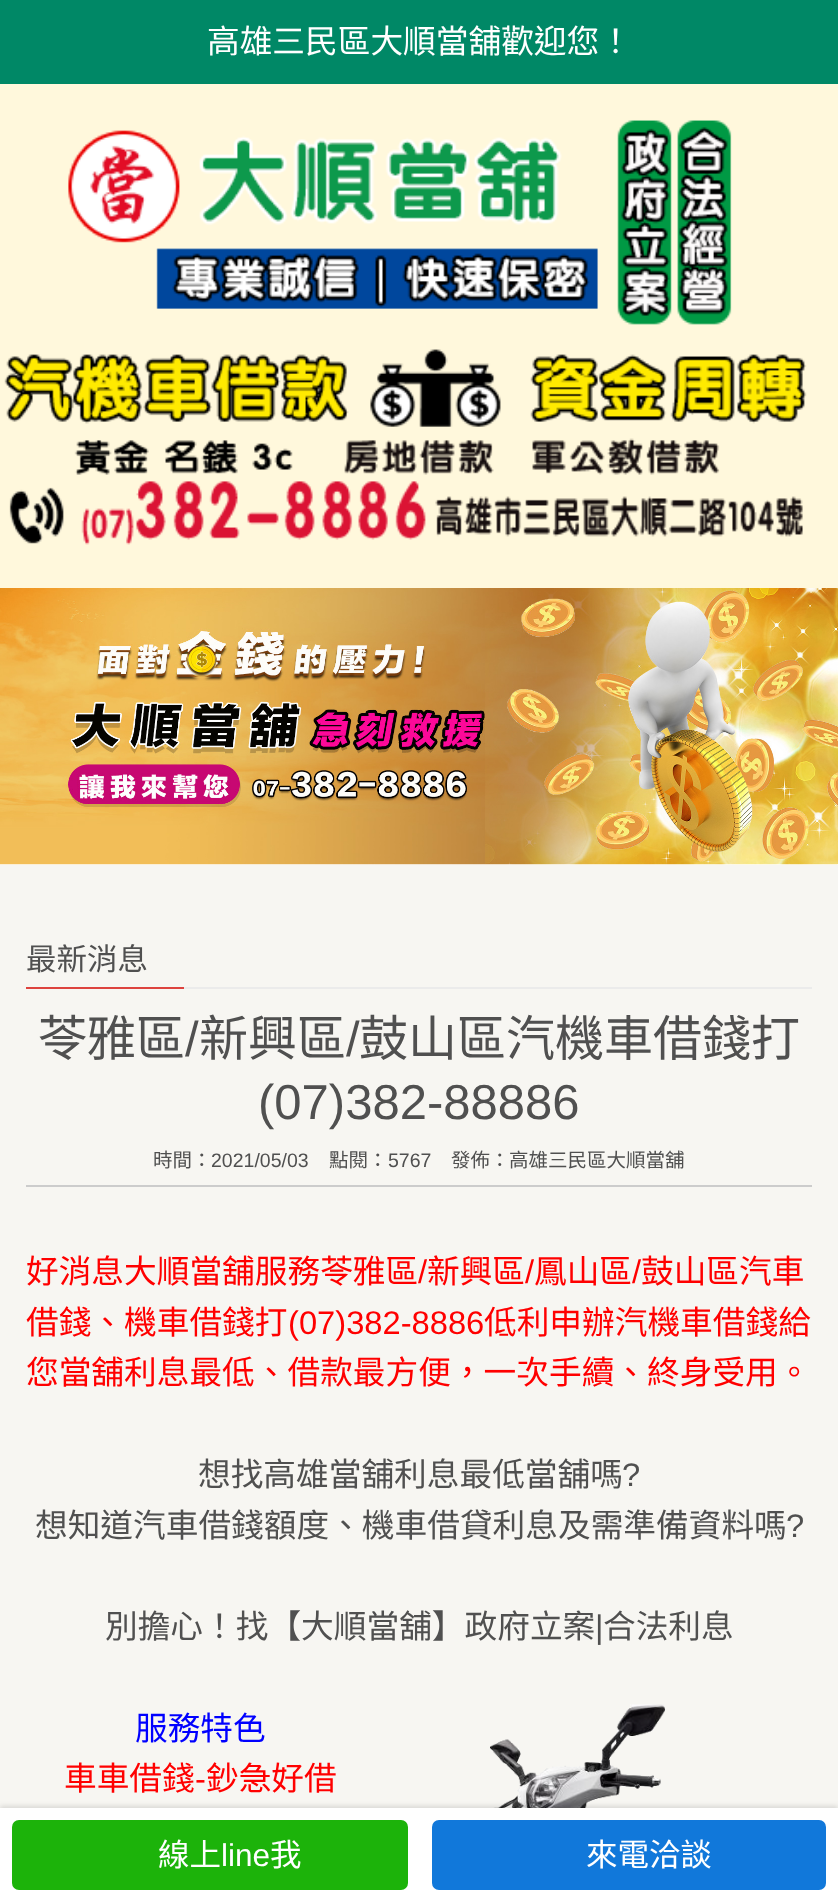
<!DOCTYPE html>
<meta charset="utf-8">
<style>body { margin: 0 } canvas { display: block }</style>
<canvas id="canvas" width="838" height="1902"></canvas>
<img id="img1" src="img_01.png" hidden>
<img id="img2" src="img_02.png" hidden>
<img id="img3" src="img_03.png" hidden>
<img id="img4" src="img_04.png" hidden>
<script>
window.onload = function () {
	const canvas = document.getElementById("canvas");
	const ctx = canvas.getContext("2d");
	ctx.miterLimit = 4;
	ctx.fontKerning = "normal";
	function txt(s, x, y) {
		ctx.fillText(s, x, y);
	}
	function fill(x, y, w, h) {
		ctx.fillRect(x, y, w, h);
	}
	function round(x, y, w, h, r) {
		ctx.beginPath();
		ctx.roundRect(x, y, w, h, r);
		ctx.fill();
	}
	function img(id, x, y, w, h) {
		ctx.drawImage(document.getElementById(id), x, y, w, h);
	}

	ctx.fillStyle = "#FFF8DC";
	fill(0, 0, 838, 1902);
	ctx.fillStyle = "#008866";
	fill(0, 0, 838, 84);
	img("img1", 68, 120, 664, 205);
	img("img2", 4, 349, 803, 196);
	ctx.fillStyle = "#FFFFFF";
	fill(0, 864, 838, 1);
	img("img3", 0, 588, 838, 277);
	ctx.fillStyle = "#F7F6F2";
	fill(0, 865, 838, 943);
	ctx.fillStyle = "#EBEBEB";
	fill(184, 987, 628, 2);
	ctx.fillStyle = "#DD433E";
	fill(26, 987, 158, 2);
	ctx.fillStyle = "#CCCCCC";
	fill(26, 1185, 786, 2);
	img("img4", 490, 1704, 176, 104);
	ctx.fillStyle = "rgba(0, 0, 0, 0.12)";
	ctx.filter = "blur(2.5px)";
	ctx.beginPath();
	ctx.rect(0, 1806, 838, 95);
	ctx.fill();
	ctx.filter = "none";
	ctx.fillStyle = "#FFFFFF";
	fill(0, 1808, 838, 94);
	ctx.fillStyle = "#1CB30A";
	round(12, 1820, 396, 70, 7);
	ctx.fillStyle = "#1178DA";
	round(432, 1820, 394, 70, 7);
	ctx.font = "32.7px Noto Sans CJK TC";
	ctx.fillStyle = "#FFFFFF";
	txt("高雄三民區大順當舖歡迎您！", 207, 53);
	ctx.font = "30.5px Noto Sans CJK TC";
	ctx.fillStyle = "#505050";
	txt("最新消息", 26, 970);
	ctx.font = "49px Noto Sans CJK TC";
	txt("苓雅區", 38, 1056);
	ctx.font = "49px Liberation Sans";
	txt("/", 185, 1056);
	ctx.font = "49px Noto Sans CJK TC";
	txt("新興區", 199, 1056);
	ctx.font = "49px Liberation Sans";
	txt("/", 346, 1056);
	ctx.font = "49px Noto Sans CJK TC";
	txt("鼓山區汽機車借錢打", 359, 1056);
	ctx.font = "49px Liberation Sans";
	txt("(07)382-88886", 258, 1119);
	ctx.font = "19.5px Noto Sans CJK TC";
	txt("時間：", 153, 1167);
	ctx.font = "19.5px Liberation Sans";
	txt("2021/05/03", 211, 1167);
	ctx.font = "19.5px Noto Sans CJK TC";
	txt("點閱：", 329, 1167);
	ctx.font = "19.5px Liberation Sans";
	txt("5767", 388, 1167);
	ctx.font = "19.5px Noto Sans CJK TC";
	txt("發佈：", 451, 1167);
	txt("高雄三民區大順當舖", 509, 1167);
	ctx.font = "32.7px Noto Sans CJK TC";
	ctx.fillStyle = "#FF0000";
	txt("好消息大順當舖服務苓雅區", 26, 1283);
	ctx.font = "32.7px Liberation Sans";
	txt("/", 418, 1283);
	ctx.font = "32.7px Noto Sans CJK TC";
	txt("新興區", 427, 1283);
	ctx.font = "32.7px Liberation Sans";
	txt("/", 525, 1283);
	ctx.font = "32.7px Noto Sans CJK TC";
	txt("鳳山區", 534, 1283);
	ctx.font = "32.7px Liberation Sans";
	txt("/", 632, 1283);
	ctx.font = "32.7px Noto Sans CJK TC";
	txt("鼓山區汽車", 641, 1283);
	txt("借錢、機車借錢打", 26, 1334);
	ctx.font = "32.7px Liberation Sans";
	txt("(07)382-8886", 288, 1334);
	ctx.font = "32.7px Noto Sans CJK TC";
	txt("低利申辦汽機車借錢給", 484, 1334);
	txt("您當舖利息最低、借款最方便，一次手續、終身受用。", 26, 1384);
	ctx.fillStyle = "#505050";
	txt("想找高雄當舖利息最低當舖嗎", 198, 1486);
	ctx.font = "32.7px Liberation Sans";
	txt("?", 622, 1486);
	ctx.font = "32.7px Noto Sans CJK TC";
	txt("想知道汽車借錢額度、機車借貸利息及需準備資料嗎", 35, 1537);
	ctx.font = "32.7px Liberation Sans";
	txt("?", 786, 1537);
	ctx.font = "32.7px Noto Sans CJK TC";
	txt("別擔心！找【大順當舖】政府立案", 105, 1638);
	ctx.font = "32.7px Liberation Sans";
	txt("|", 595, 1638);
	ctx.font = "32.7px Noto Sans CJK TC";
	txt("合法利息", 603, 1638);
	ctx.fillStyle = "#0000FF";
	txt("服務特色", 135, 1740);
	ctx.fillStyle = "#FF0000";
	txt("車車借錢", 64, 1790);
	ctx.font = "32.7px Liberation Sans";
	txt("-", 195, 1790);
	ctx.font = "32.7px Noto Sans CJK TC";
	txt("鈔急好借", 206, 1790);
	ctx.font = "31.5px Noto Sans CJK TC";
	ctx.fillStyle = "#FFFFFF";
	txt("線上", 158, 1866);
	ctx.font = "31.5px Liberation Sans";
	txt("line", 221, 1866);
	ctx.font = "31.5px Noto Sans CJK TC";
	txt("我", 270, 1866);
	txt("來電洽談", 586, 1866);
};
</script>
